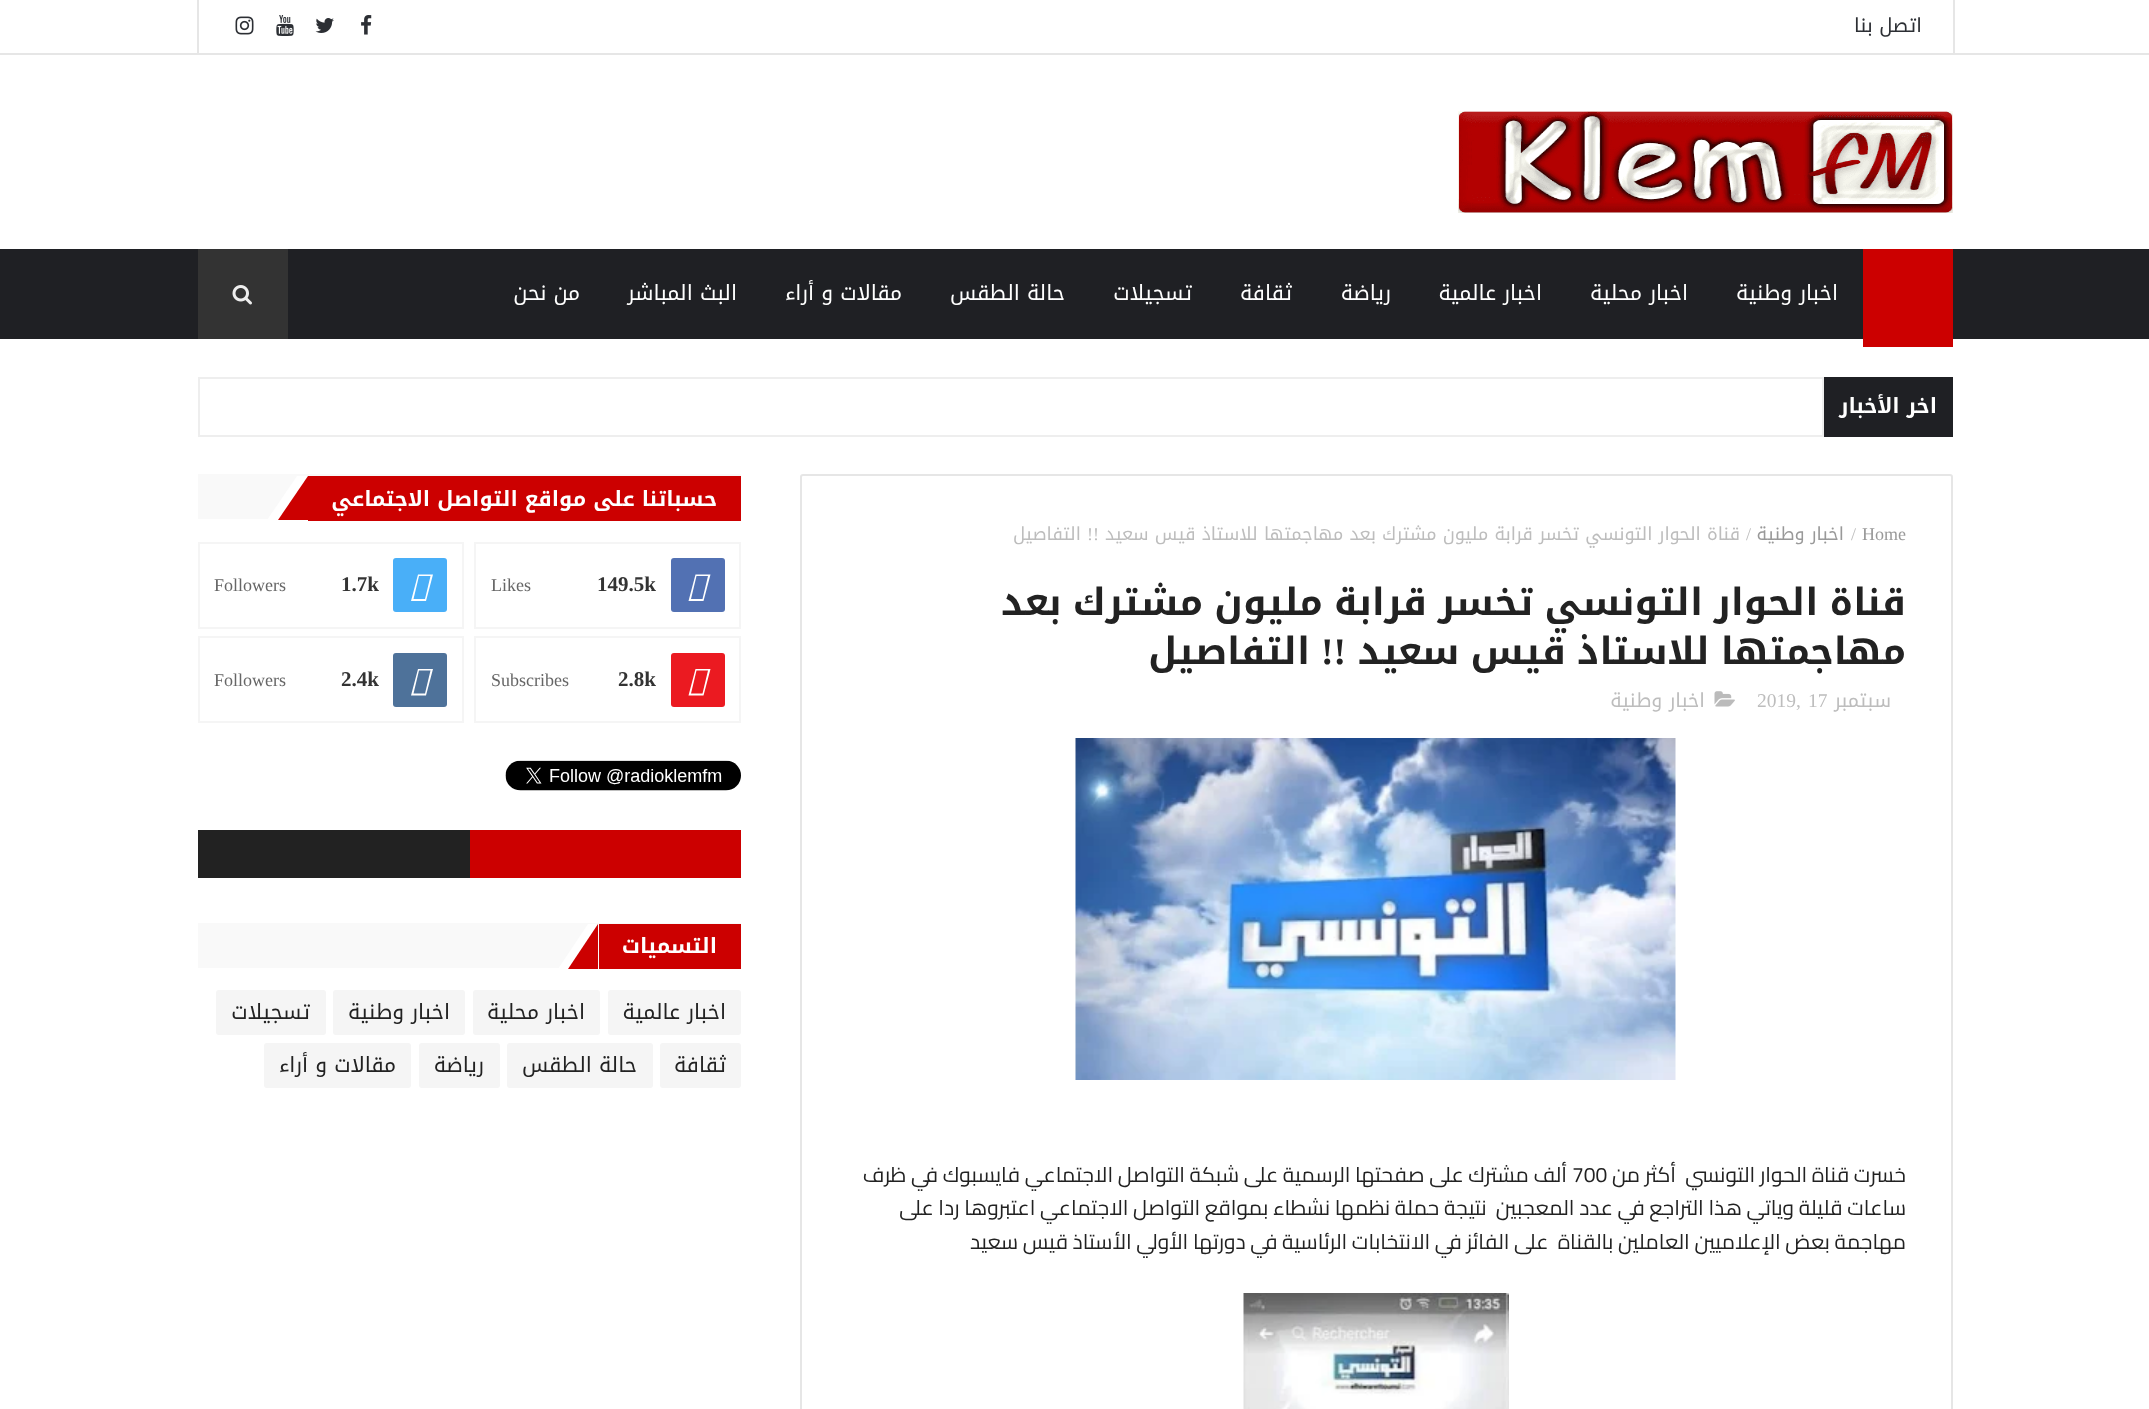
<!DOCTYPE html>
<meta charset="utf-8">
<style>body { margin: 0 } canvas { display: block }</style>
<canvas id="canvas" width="2149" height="1409"></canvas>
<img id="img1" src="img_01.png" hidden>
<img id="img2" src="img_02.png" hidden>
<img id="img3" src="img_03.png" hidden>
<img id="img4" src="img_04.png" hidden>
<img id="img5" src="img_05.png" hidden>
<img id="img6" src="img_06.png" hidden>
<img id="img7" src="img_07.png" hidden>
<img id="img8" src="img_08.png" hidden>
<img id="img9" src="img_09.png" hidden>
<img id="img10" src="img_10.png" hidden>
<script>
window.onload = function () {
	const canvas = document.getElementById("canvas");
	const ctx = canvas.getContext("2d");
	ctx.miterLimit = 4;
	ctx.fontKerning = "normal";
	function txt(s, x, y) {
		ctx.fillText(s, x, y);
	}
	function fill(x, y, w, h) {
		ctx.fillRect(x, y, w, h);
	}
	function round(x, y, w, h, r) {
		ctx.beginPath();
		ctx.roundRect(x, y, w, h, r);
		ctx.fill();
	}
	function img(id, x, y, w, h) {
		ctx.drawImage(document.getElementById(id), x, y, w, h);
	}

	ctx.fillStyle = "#FFFFFF";
	fill(0, 0, 2149, 1409);
	ctx.fillStyle = "#E6E6E6";
	fill(0, 53, 2149, 2);
	fill(1953, 0, 2, 53);
	fill(197, 0, 2, 53);
	img("img1", 361, 15, 11, 20);
	img("img2", 315, 18, 19, 15);
	img("img3", 276, 15, 18, 21);
	img("img4", 235, 16, 19, 19);
	img("img5", 1458, 111, 495, 102);
	ctx.fillStyle = "#1F2024";
	fill(0, 249, 2149, 90);
	ctx.fillStyle = "#CC0000";
	fill(1863, 249, 90, 98);
	ctx.fillStyle = "#333333";
	fill(198, 249, 90, 90);
	img("img6", 232, 285, 20, 20);
	ctx.fillStyle = "#1F2024";
	fill(1824, 377, 129, 60);
	ctx.strokeStyle = "#EEEEEE";
	ctx.lineWidth = 2;
	ctx.strokeRect(199, 378, 1624, 58);
	ctx.beginPath();
	ctx.roundRect(801, 475, 1151, 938, 2);
	ctx.strokeStyle = "#E6E6E6";
	ctx.stroke();
	img("img7", 1714, 691, 21, 16);
	img("img8", 1075, 738, 601, 342);
	img("img9", 1243, 1293, 266, 116);
	ctx.fillStyle = "#F9F9F9";
	fill(198, 474, 543, 45);
	ctx.fillStyle = "#CC0000";
	fill(308, 476, 433, 45);
	ctx.fillStyle = "#FFFFFF";
	ctx.beginPath();
	ctx.moveTo(308, 520);
	ctx.lineTo(267, 520);
	ctx.lineTo(297, 476);
	ctx.lineTo(308, 476);
	ctx.closePath();
	ctx.fill();
	ctx.fillStyle = "#CC0000";
	ctx.beginPath();
	ctx.moveTo(308, 520);
	ctx.lineTo(278, 520);
	ctx.lineTo(308, 476);
	ctx.closePath();
	ctx.fill();
	ctx.strokeStyle = "#F5F5F5";
	ctx.strokeRect(475, 543, 265, 85);
	ctx.fillStyle = "#5271B3";
	round(671, 558, 54, 54, 3);
	ctx.fillStyle = "#FFFFFF";
	ctx.beginPath();
	ctx.moveTo(688.5, 601);
	ctx.lineTo(695.5, 574.5);
	ctx.lineTo(710.5, 574.5);
	ctx.lineTo(703.5, 601);
	ctx.closePath();
	ctx.moveTo(691, 599);
	ctx.lineTo(702.5, 599);
	ctx.lineTo(708, 576);
	ctx.lineTo(696.5, 576);
	ctx.closePath();
	ctx.fill();
	ctx.strokeRect(199, 543, 264, 85);
	ctx.fillStyle = "#49AFF8";
	round(393, 558, 54, 54, 3);
	ctx.fillStyle = "#FFFFFF";
	ctx.beginPath();
	ctx.moveTo(411, 601);
	ctx.lineTo(418, 574.5);
	ctx.lineTo(433, 574.5);
	ctx.lineTo(426, 601);
	ctx.closePath();
	ctx.moveTo(413.5, 599);
	ctx.lineTo(425, 599);
	ctx.lineTo(430.5, 576);
	ctx.lineTo(419, 576);
	ctx.closePath();
	ctx.fill();
	ctx.strokeRect(475, 637, 265, 85);
	ctx.fillStyle = "#EB1A21";
	round(671, 653, 54, 54, 3);
	ctx.fillStyle = "#FFFFFF";
	ctx.beginPath();
	ctx.moveTo(688.5, 695.5);
	ctx.lineTo(695.5, 669);
	ctx.lineTo(710.5, 669);
	ctx.lineTo(703.5, 695.5);
	ctx.closePath();
	ctx.moveTo(691, 693.5);
	ctx.lineTo(702.5, 693.5);
	ctx.lineTo(708, 670.5);
	ctx.lineTo(696.5, 670.5);
	ctx.closePath();
	ctx.fill();
	ctx.strokeRect(199, 637, 264, 85);
	ctx.fillStyle = "#4E729A";
	round(393, 653, 54, 54, 3);
	ctx.fillStyle = "#FFFFFF";
	ctx.beginPath();
	ctx.moveTo(411, 695.5);
	ctx.lineTo(418, 669);
	ctx.lineTo(433, 669);
	ctx.lineTo(426, 695.5);
	ctx.closePath();
	ctx.moveTo(413.5, 693.5);
	ctx.lineTo(425, 693.5);
	ctx.lineTo(430.5, 670.5);
	ctx.lineTo(419, 670.5);
	ctx.closePath();
	ctx.fill();
	img("img10", 505, 760, 236, 31);
	ctx.fillStyle = "#CC0000";
	fill(470, 830, 271, 48);
	ctx.fillStyle = "#222222";
	fill(198, 830, 272, 48);
	ctx.fillStyle = "#F9F9F9";
	fill(198, 923, 543, 45);
	ctx.fillStyle = "#CC0000";
	fill(599, 924, 142, 45);
	ctx.fillStyle = "#FFFFFF";
	ctx.beginPath();
	ctx.moveTo(598, 969);
	ctx.lineTo(558, 969);
	ctx.lineTo(588, 924);
	ctx.lineTo(598, 924);
	ctx.closePath();
	ctx.fill();
	ctx.fillStyle = "#CC0000";
	ctx.beginPath();
	ctx.moveTo(598, 969);
	ctx.lineTo(568, 969);
	ctx.lineTo(598, 924);
	ctx.closePath();
	ctx.fill();
	ctx.fillStyle = "#F5F5F5";
	round(608, 990, 133, 45, 3);
	round(473, 990, 127, 45, 3);
	round(333, 990, 132, 45, 3);
	round(216, 990, 110, 45, 3);
	round(660, 1043, 81, 45, 3);
	round(507, 1043, 146, 45, 3);
	round(419, 1043, 81, 45, 3);
	round(264, 1043, 147, 45, 3);
	ctx.direction = "rtl";
	ctx.font = "19.5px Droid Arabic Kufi";
	ctx.fillStyle = "#2C2F34";
	txt("اتصل بنا", 1922, 32);
	ctx.font = "21px Droid Arabic Kufi";
	ctx.fillStyle = "#FFFFFF";
	txt("اخبار وطنية", 1838, 300);
	txt("اخبار محلية", 1688, 300);
	txt("اخبار عالمية", 1542, 300);
	txt("رياضة", 1391, 300);
	txt("ثقافة", 1292, 300);
	txt("تسجيلات", 1192, 300);
	txt("حالة الطقس", 1065, 300);
	txt("مقالات و أراء", 902, 300);
	txt("البث المباشر", 737, 300);
	txt("من نحن", 580, 300);
	ctx.font = "bold 21px Droid Arabic Kufi";
	txt("اخر الأخبار", 1937, 413);
	ctx.direction = "ltr";
	ctx.font = "18px Liberation Serif";
	ctx.fillStyle = "#999999";
	txt("Home", 1862, 540);
	ctx.fillStyle = "#BDBDBD";
	txt("/", 1851, 540);
	ctx.direction = "rtl";
	ctx.font = "18px Droid Arabic Kufi";
	ctx.fillStyle = "#999999";
	txt("اخبار وطنية", 1844, 540);
	ctx.direction = "ltr";
	ctx.font = "18px Liberation Serif";
	ctx.fillStyle = "#BDBDBD";
	txt("/", 1746, 540);
	ctx.direction = "rtl";
	ctx.font = "18px Droid Arabic Kufi";
	txt("قناة الحوار التونسي تخسر قرابة مليون مشترك بعد مهاجمتها للاستاذ قيس سعيد", 1740, 540);
	ctx.font = "18px Liberation Serif";
	txt("!!", 1099, 540);
	ctx.font = "18px Droid Arabic Kufi";
	txt("التفاصيل", 1081, 540);
	ctx.wordSpacing = "-1.5px";
	ctx.font = "bold 37.5px Droid Arabic Kufi";
	ctx.fillStyle = "#222222";
	txt("قناة الحوار التونسي تخسر قرابة مليون مشترك بعد", 1906, 615);
	txt("مهاجمتها للاستاذ قيس سعيد", 1906, 664);
	ctx.wordSpacing = "0px";
	ctx.font = "bold 37.5px Liberation Serif";
	txt("!!", 1346, 664);
	ctx.font = "bold 37.5px Droid Arabic Kufi";
	txt("التفاصيل", 1310, 664);
	ctx.font = "19.5px Droid Arabic Kufi";
	ctx.fillStyle = "#BDBDBD";
	txt("سبتمبر", 1891, 707);
	ctx.direction = "ltr";
	ctx.font = "19.5px Liberation Serif";
	txt("17", 1808, 707);
	txt("2019,", 1757, 707);
	ctx.direction = "rtl";
	ctx.font = "19.5px Droid Arabic Kufi";
	txt("اخبار وطنية", 1705, 707);
	ctx.font = "21px Cairo";
	ctx.fillStyle = "#222222";
	txt("خسرت قناة الحوار التونسي  أكثر من", 1906, 1182);
	ctx.direction = "ltr";
	txt("700", 1572, 1182);
	ctx.direction = "rtl";
	txt("ألف مشترك على صفحتها الرسمية على شبكة التواصل الاجتماعي فايسبوك في ظرف", 1567, 1182);
	txt("ساعات قليلة وياتي هذا التراجع في عدد المعجبين  نتيجة حملة نظمها نشطاء بمواقع التواصل الاجتماعي اعتبروها ردا على", 1906, 1215);
	txt("مهاجمة بعض الإعلاميين العاملين بالقناة  على الفائز في الانتخابات الرئاسية في دورتها الأولي الأستاذ قيس سعيد", 1906, 1249);
	ctx.font = "bold 21px Droid Arabic Kufi";
	ctx.fillStyle = "#FFFFFF";
	txt("حسباتنا على مواقع التواصل الاجتماعي", 717, 506);
	ctx.direction = "ltr";
	ctx.font = "bold 21px Liberation Serif";
	ctx.fillStyle = "#333333";
	txt("149.5k", 597, 591);
	ctx.font = "18px Liberation Serif";
	ctx.fillStyle = "#666666";
	txt("Likes", 491, 591);
	ctx.font = "bold 21px Liberation Serif";
	ctx.fillStyle = "#333333";
	txt("1.7k", 341, 591);
	ctx.font = "18px Liberation Serif";
	ctx.fillStyle = "#666666";
	txt("Followers", 214, 591);
	ctx.font = "bold 21px Liberation Serif";
	ctx.fillStyle = "#333333";
	txt("2.8k", 618, 686);
	ctx.font = "18px Liberation Serif";
	ctx.fillStyle = "#666666";
	txt("Subscribes", 491, 686);
	ctx.font = "bold 21px Liberation Serif";
	ctx.fillStyle = "#333333";
	txt("2.4k", 341, 686);
	ctx.font = "18px Liberation Serif";
	ctx.fillStyle = "#666666";
	txt("Followers", 214, 686);
	ctx.direction = "rtl";
	ctx.font = "bold 21px Droid Arabic Kufi";
	ctx.fillStyle = "#FFFFFF";
	txt("التسميات", 717, 953);
	ctx.font = "21px Droid Arabic Kufi";
	ctx.fillStyle = "#222222";
	txt("اخبار", 726, 1019);
	txt("عالمية", 680, 1019);
	txt("اخبار محلية", 585, 1019);
	txt("اخبار وطنية", 450, 1019);
	txt("تسجيلات", 310, 1019);
	txt("ثقافة", 726, 1072);
	txt("حالة الطقس", 637, 1072);
	txt("رياضة", 484, 1072);
	txt("مقالات و أراء", 396, 1072);
};
</script>
